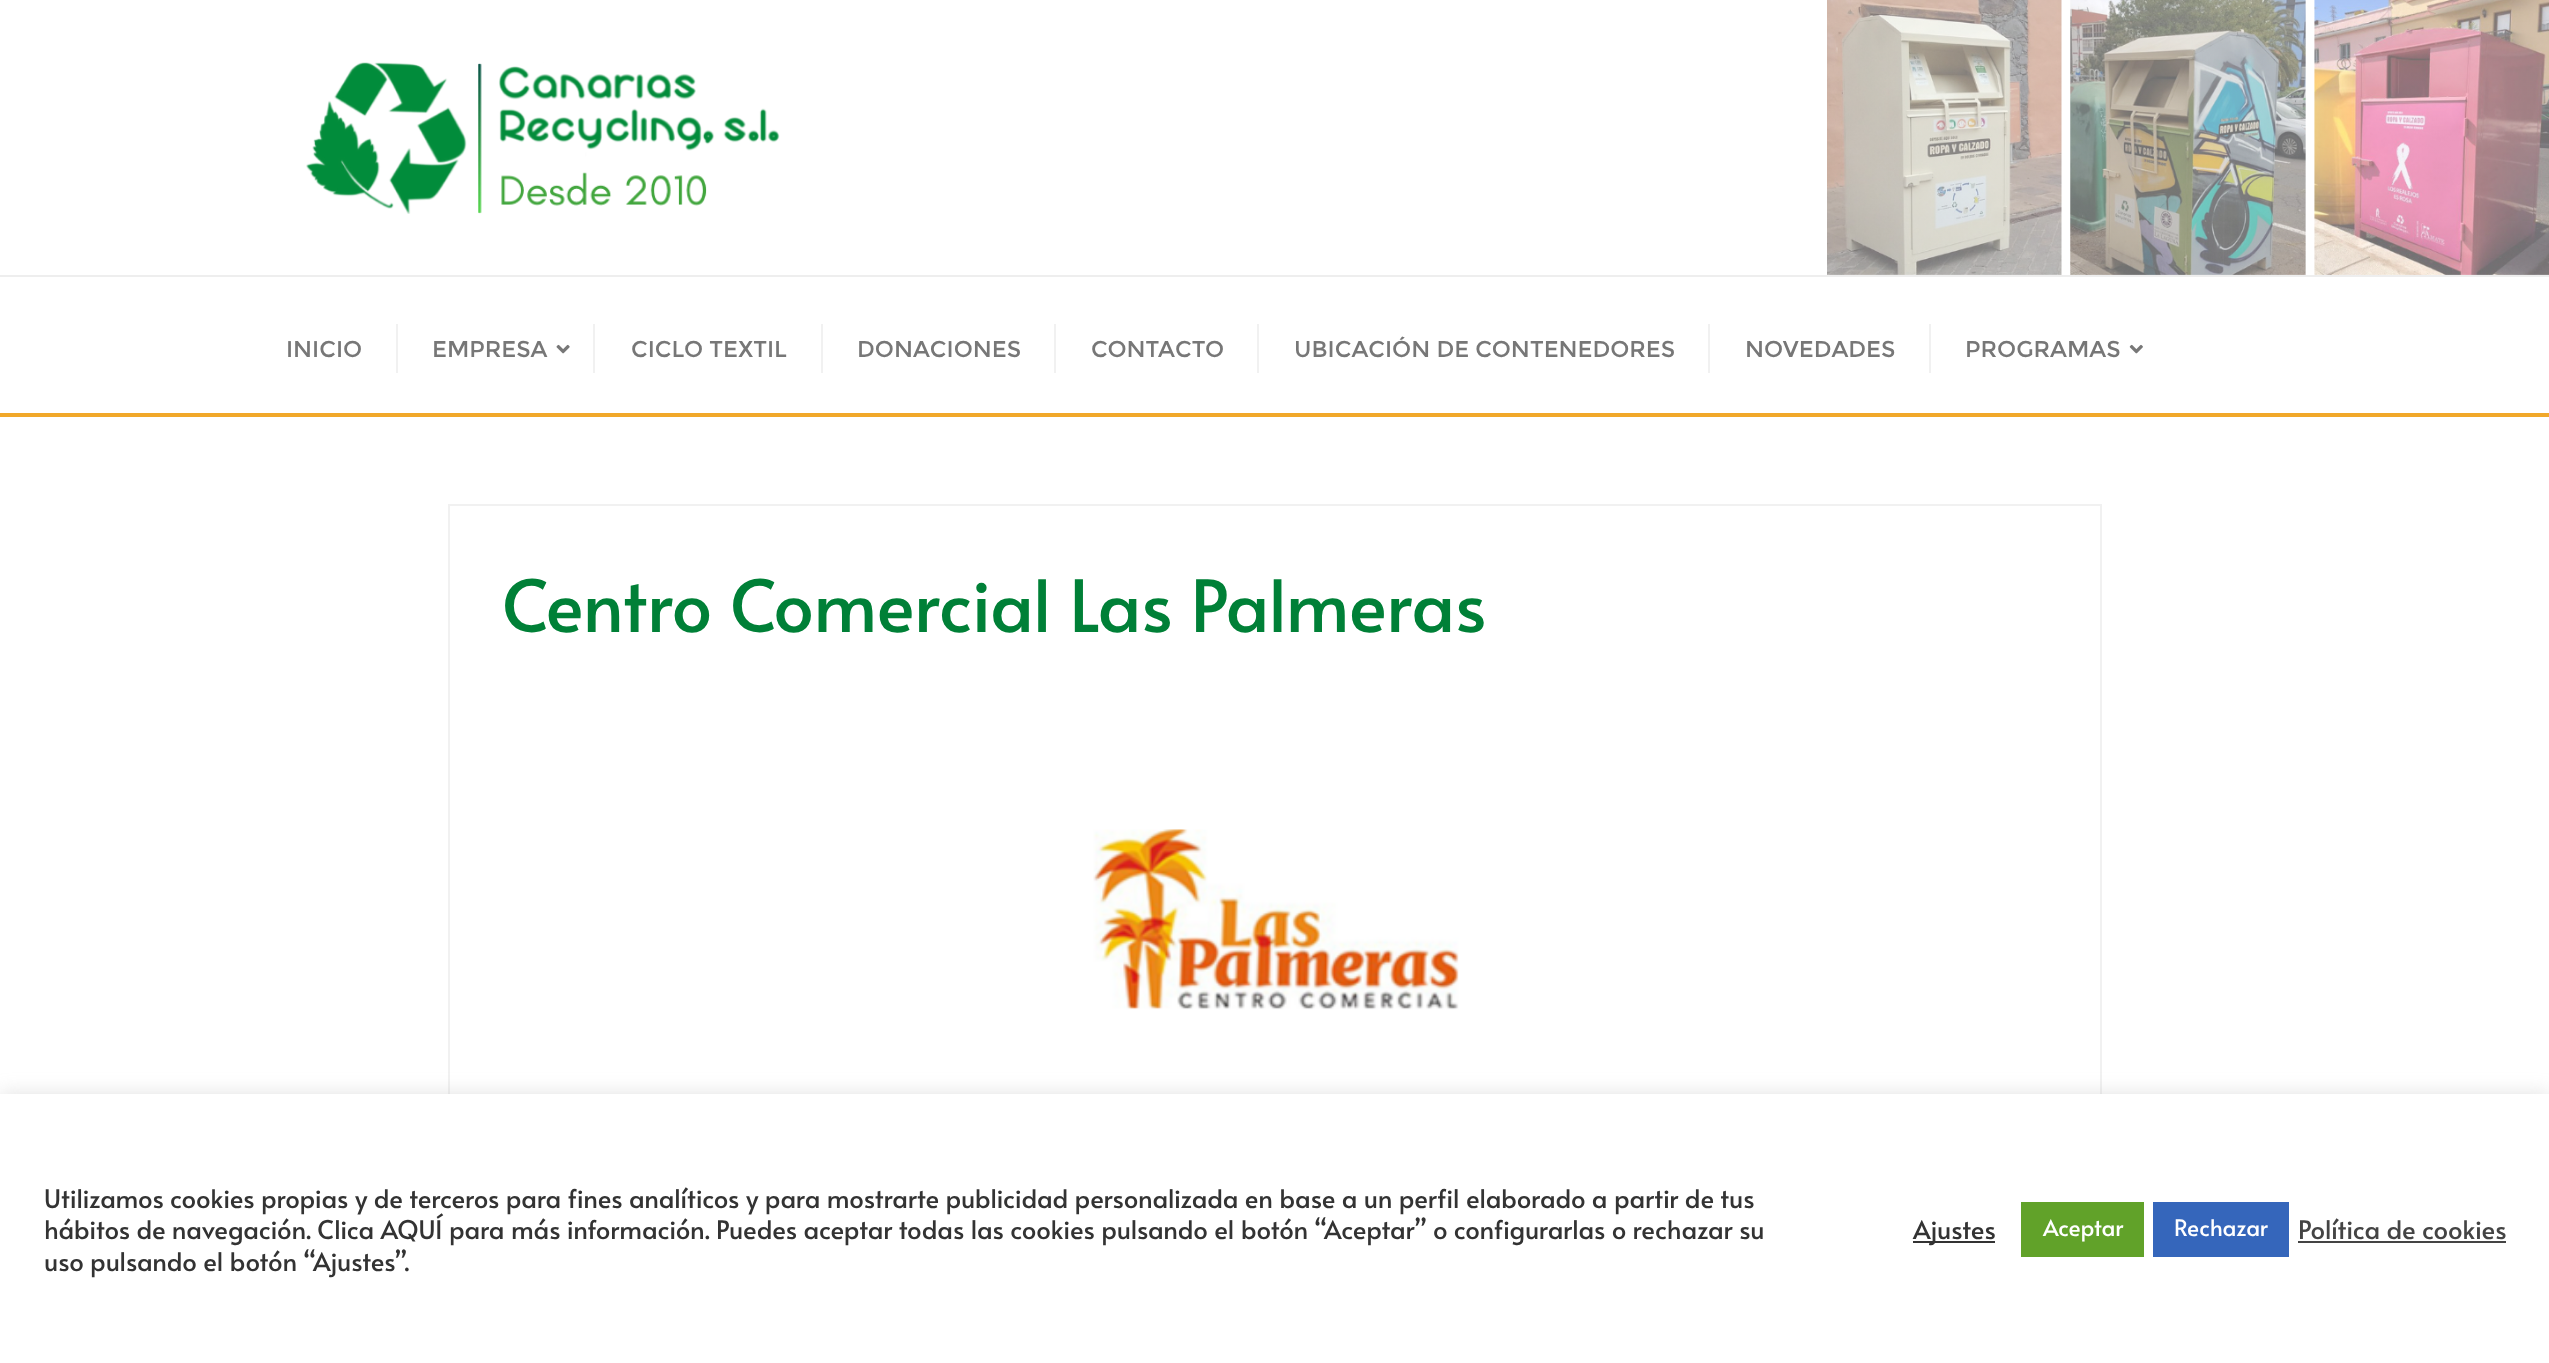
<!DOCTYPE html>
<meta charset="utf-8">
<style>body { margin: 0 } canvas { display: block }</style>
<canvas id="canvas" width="2549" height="1363"></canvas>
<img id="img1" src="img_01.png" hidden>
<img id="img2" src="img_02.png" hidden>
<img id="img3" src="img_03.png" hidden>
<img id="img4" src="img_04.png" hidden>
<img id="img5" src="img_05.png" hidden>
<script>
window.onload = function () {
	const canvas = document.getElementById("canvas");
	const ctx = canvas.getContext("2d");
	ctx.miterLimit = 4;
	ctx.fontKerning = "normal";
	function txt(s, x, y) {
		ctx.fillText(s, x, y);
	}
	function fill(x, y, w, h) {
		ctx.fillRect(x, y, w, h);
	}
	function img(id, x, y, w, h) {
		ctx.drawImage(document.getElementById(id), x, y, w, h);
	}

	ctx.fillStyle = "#FFFFFF";
	fill(0, 0, 2549, 1363);
	ctx.fillStyle = "#F1A82A";
	fill(0, 413, 2549, 4);
	img("img1", 1827, 0, 722, 275);
	ctx.fillStyle = "#EEEEEE";
	fill(0, 275, 2549, 2);
	img("img2", 306, 62, 474, 152);
	ctx.fillStyle = "#F1F1F1";
	fill(396, 324, 2, 49);
	img("img3", 556, 344, 14, 10);
	fill(593, 324, 2, 49);
	fill(821, 324, 2, 49);
	fill(1054, 324, 2, 49);
	fill(1257, 324, 2, 49);
	fill(1708, 324, 2, 49);
	fill(1929, 324, 2, 49);
	img("img4", 2129, 344, 14, 10);
	ctx.strokeStyle = "#F1F1F1";
	ctx.lineWidth = 2;
	ctx.strokeRect(449, 505, 1652, 738);
	img("img5", 1093, 829, 366, 181);
	ctx.fillStyle = "rgba(172, 171, 171, 0.3)";
	ctx.filter = "blur(9px)";
	ctx.beginPath();
	ctx.rect(0, 1092, 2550, 270);
	ctx.fill();
	ctx.filter = "none";
	ctx.fillStyle = "#FFFFFF";
	fill(0, 1094, 2549, 269);
	ctx.fillStyle = "#333333";
	fill(1913, 1241, 82, 2);
	ctx.fillStyle = "#61A229";
	fill(2021, 1202, 123, 55);
	ctx.fillStyle = "#3566BB";
	fill(2153, 1202, 136, 55);
	ctx.fillStyle = "#444444";
	fill(2298, 1241, 208, 2);
	ctx.font = "22.75px Montserrat";
	ctx.fillStyle = "#777777";
	txt("INICIO", 286, 357);
	txt("EMPRESA", 432, 357);
	txt("CICLO TEXTIL", 631, 357);
	txt("DONACIONES", 857, 357);
	txt("CONTACTO", 1091, 357);
	txt("UBICACIÓN DE CONTENEDORES", 1294, 357);
	txt("NOVEDADES", 1745, 357);
	txt("PROGRAMAS", 1965, 357);
	ctx.font = "71.75px Alata";
	ctx.fillStyle = "#008037";
	txt("Centro Comercial Las Palmeras", 502, 632);
	ctx.font = "25.67px Alata";
	ctx.fillStyle = "#333333";
	txt("Utilizamos cookies propias y de terceros para fines analíticos y para mostrarte publicidad personalizada en base a un perfil elaborado a partir de tus", 44, 1208);
	txt("hábitos de navegación. Clica AQUÍ para más información. Puedes aceptar todas las cookies pulsando el botón “Aceptar” o configurarlas o rechazar su", 44, 1239);
	txt("uso pulsando el botón “Ajustes”.", 44, 1271);
	txt("Ajustes", 1913, 1239);
	ctx.font = "22.75px Alata";
	ctx.fillStyle = "#FFFFFF";
	txt("Aceptar", 2043, 1236);
	txt("Rechazar", 2174, 1236);
	ctx.font = "25.67px Alata";
	ctx.fillStyle = "#444444";
	txt("Política de cookies", 2298, 1239);
};
</script>
